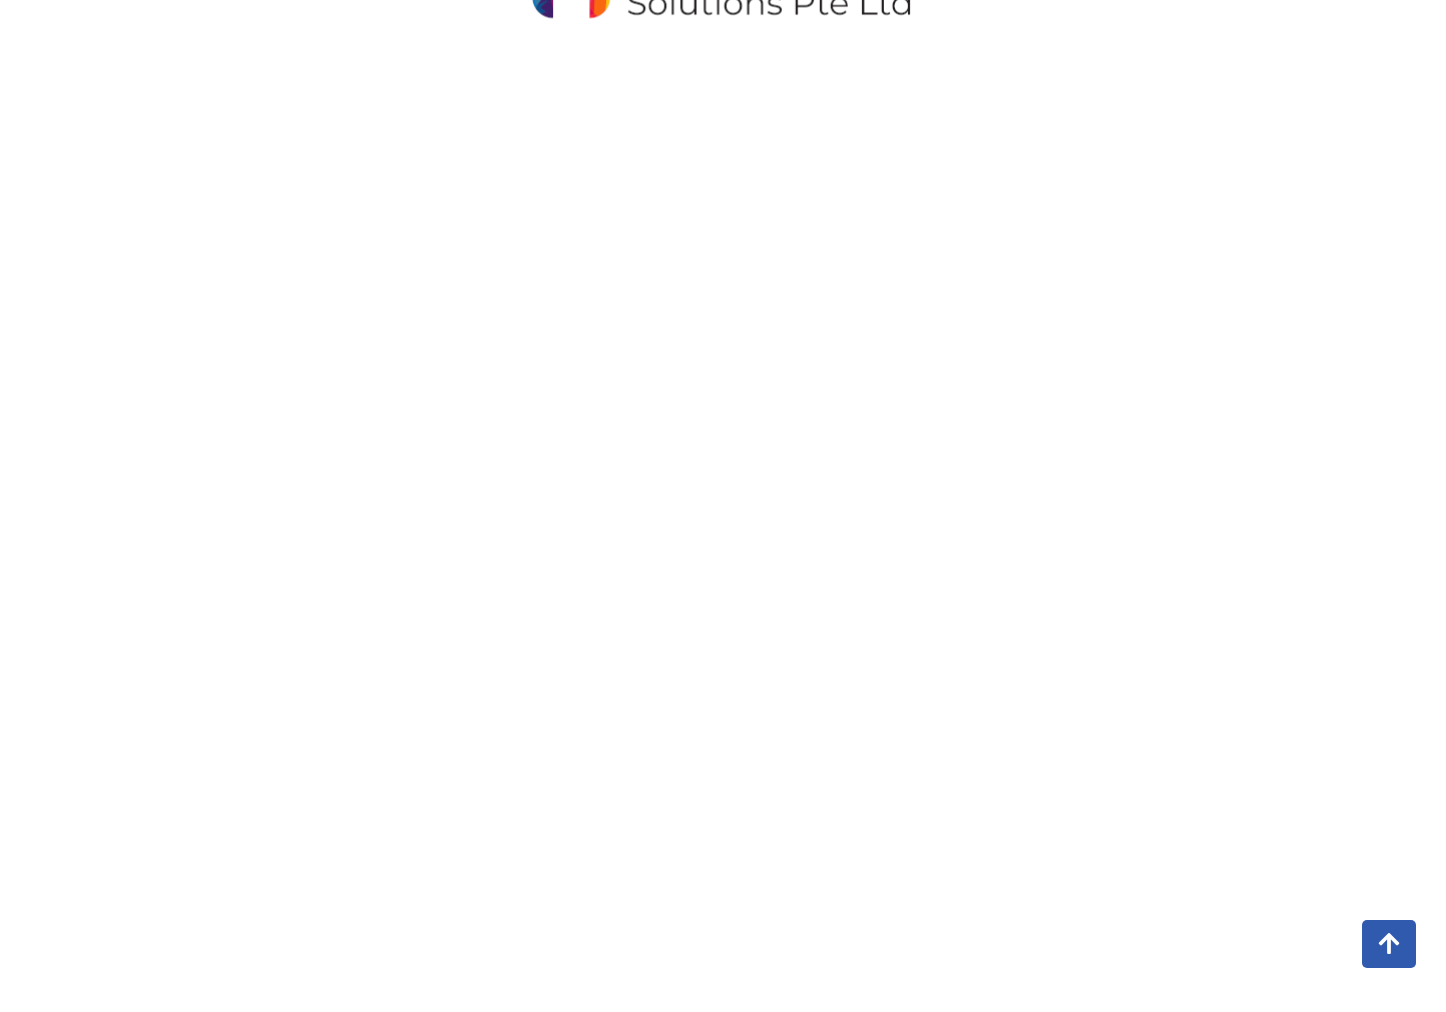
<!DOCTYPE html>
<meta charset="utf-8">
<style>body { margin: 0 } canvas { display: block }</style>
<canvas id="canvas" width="1446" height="1012"></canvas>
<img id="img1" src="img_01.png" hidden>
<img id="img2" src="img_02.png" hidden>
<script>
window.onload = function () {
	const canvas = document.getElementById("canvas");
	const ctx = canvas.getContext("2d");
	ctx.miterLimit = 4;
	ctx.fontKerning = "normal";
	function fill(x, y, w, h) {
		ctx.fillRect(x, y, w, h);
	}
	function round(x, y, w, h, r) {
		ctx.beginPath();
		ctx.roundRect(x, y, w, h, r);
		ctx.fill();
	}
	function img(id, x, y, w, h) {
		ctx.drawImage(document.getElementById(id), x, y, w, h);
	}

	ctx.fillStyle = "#FFFFFF";
	fill(0, 0, 1446, 1012);
	img("img1", 532, 0, 379, 19);
	ctx.fillStyle = "#2F5AAE";
	round(1362, 920, 54, 48, 5);
	img("img2", 1378, 933, 22, 21);
};
</script>
